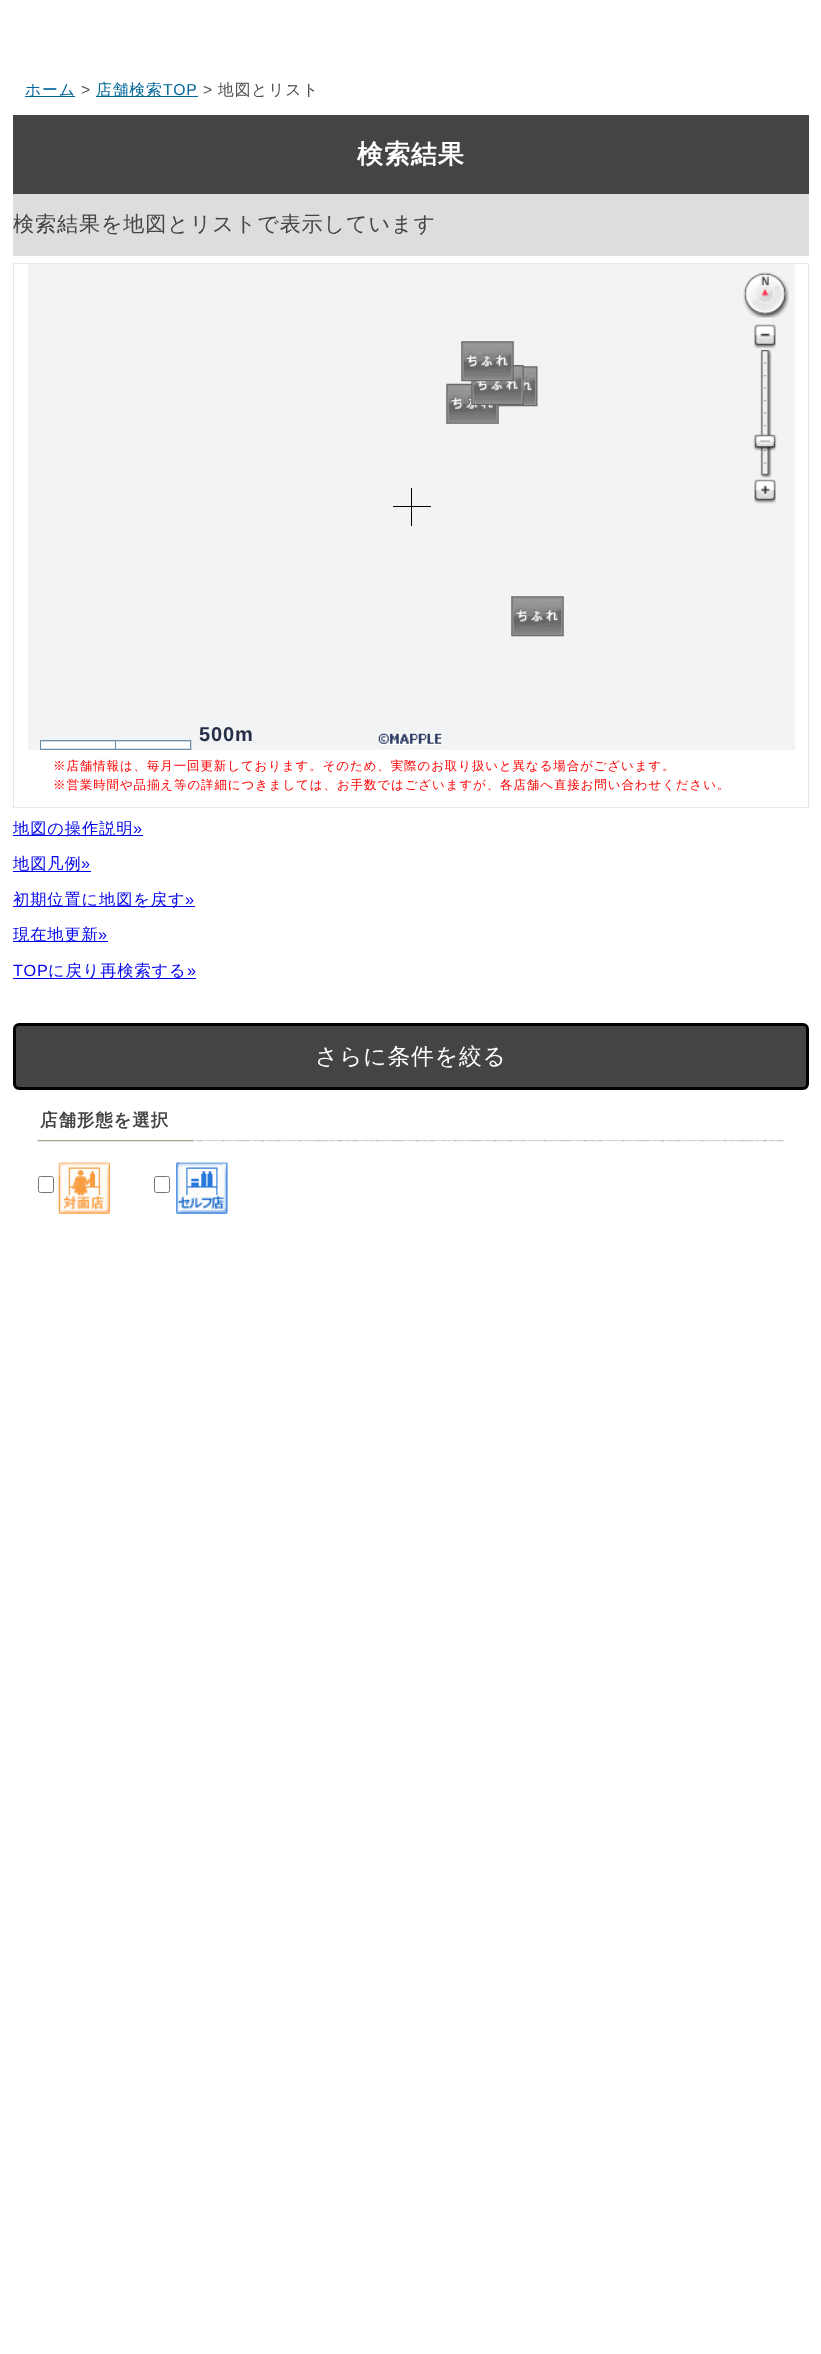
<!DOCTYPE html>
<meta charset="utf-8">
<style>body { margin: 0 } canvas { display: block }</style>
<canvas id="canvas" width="821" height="2354"></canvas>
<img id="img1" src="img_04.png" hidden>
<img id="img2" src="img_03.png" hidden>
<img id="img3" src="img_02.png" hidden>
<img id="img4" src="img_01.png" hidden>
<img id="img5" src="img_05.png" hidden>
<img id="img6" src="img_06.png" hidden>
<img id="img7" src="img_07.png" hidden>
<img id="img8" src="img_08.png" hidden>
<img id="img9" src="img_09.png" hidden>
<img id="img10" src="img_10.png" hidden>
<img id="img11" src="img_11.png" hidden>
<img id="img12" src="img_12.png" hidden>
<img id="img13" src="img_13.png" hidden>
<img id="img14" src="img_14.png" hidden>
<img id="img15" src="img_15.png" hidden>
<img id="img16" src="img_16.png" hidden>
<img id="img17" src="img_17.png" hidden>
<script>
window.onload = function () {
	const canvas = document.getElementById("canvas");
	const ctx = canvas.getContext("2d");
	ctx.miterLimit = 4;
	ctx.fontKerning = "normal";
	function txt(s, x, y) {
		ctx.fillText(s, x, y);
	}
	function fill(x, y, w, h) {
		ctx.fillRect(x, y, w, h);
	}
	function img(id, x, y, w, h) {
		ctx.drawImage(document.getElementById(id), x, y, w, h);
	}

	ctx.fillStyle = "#FFFFFF";
	fill(0, 0, 821, 2354);
	ctx.fillStyle = "#006699";
	fill(25, 96, 50, 1);
	fill(96, 96, 102, 1);
	ctx.fillStyle = "#444444";
	fill(13, 115, 796, 79);
	ctx.fillStyle = "#DDDDDD";
	fill(13, 194, 796, 62);
	ctx.strokeStyle = "#E9E8E3";
	ctx.strokeRect(13.5, 263.5, 795, 544);
	ctx.fillStyle = "#F1F3F4";
	fill(28, 264, 767, 486);
	img("img1", 498, 366, 40, 41);
	img("img2", 446, 383, 53, 41);
	img("img3", 471, 365, 53, 40);
	img("img4", 461, 341, 53, 41);
	img("img5", 511, 596, 53, 41);
	img("img6", 743, 272, 46, 46);
	img("img7", 761, 276, 8, 21);
	img("img8", 754, 324, 22, 25);
	img("img9", 760, 350, 12, 128);
	img("img10", 753, 434, 24, 17);
	img("img11", 754, 479, 22, 25);
	ctx.fillStyle = "#000000";
	fill(393, 506, 38, 1);
	fill(411, 488, 1, 38);
	img("img12", 40, 740, 2, 10);
	img("img13", 41, 740, 74, 10);
	img("img12", 115, 740, 2, 10);
	img("img13", 116, 740, 74, 10);
	img("img12", 190, 740, 2, 10);
	img("img14", 377, 732, 66, 13);
	ctx.fillStyle = "#0000EE";
	fill(13, 835, 130, 1);
	fill(13, 871, 78, 1);
	fill(13, 906, 182, 1);
	fill(13, 941, 95, 1);
	fill(13, 978, 183, 1);
	ctx.fillStyle = "#444444";
	ctx.beginPath();
	ctx.roundRect(14.5, 1024.5, 793, 64, 4.5);
	ctx.fill();
	ctx.strokeStyle = "#000000";
	ctx.lineWidth = 3;
	ctx.stroke();
	img("img15", 37, 1140, 747, 2);
	ctx.beginPath();
	ctx.roundRect(38.5, 1176.5, 15, 16, 2);
	ctx.strokeStyle = "#767676";
	ctx.lineWidth = 1;
	ctx.stroke();
	img("img16", 58, 1162, 52, 52);
	ctx.beginPath();
	ctx.roundRect(154.5, 1176.5, 15, 16, 2);
	ctx.stroke();
	img("img17", 176, 1162, 52, 52);
	ctx.letterSpacing = "0.88px";
	ctx.font = "500 15.75px WenQuanYi Zen Hei";
	ctx.fillStyle = "#006699";
	txt("ホーム", 25, 95);
	ctx.font = "15.75px Liberation Sans";
	ctx.fillStyle = "#4C4C4C";
	txt(">", 81, 95);
	ctx.font = "500 15.75px WenQuanYi Zen Hei";
	ctx.fillStyle = "#006699";
	txt("店舗検索", 96, 95);
	ctx.font = "15.75px Liberation Sans";
	txt("TOP", 163, 95);
	ctx.fillStyle = "#4C4C4C";
	txt(">", 203, 95);
	ctx.font = "500 15.75px WenQuanYi Zen Hei";
	txt("地図とリスト", 218, 95);
	ctx.font = "bold 26px WenQuanYi Zen Hei";
	ctx.fillStyle = "#FFFFFF";
	txt("検索結果", 357, 163);
	ctx.font = "500 21.1px WenQuanYi Zen Hei";
	ctx.fillStyle = "#444444";
	txt("検索結果を地図とリストで表示しています", 13, 231);
	ctx.font = "bold 20px Liberation Sans";
	ctx.fillStyle = "#253046";
	txt("500m", 199, 741);
	ctx.font = "500 12.5px WenQuanYi Zen Hei";
	ctx.fillStyle = "#FF0000";
	txt("※店舗情報は、毎月一回更新しております。そのため、実際のお取り扱いと異なる場合がございます。", 53, 770);
	txt("※営業時間や品揃え等の詳細につきましては、お手数ではございますが、各店舗へ直接お問い合わせください。", 53, 789);
	ctx.font = "500 16.25px WenQuanYi Zen Hei";
	ctx.fillStyle = "#0000EE";
	txt("地図の操作説明", 13, 834);
	ctx.font = "16.25px Liberation Sans";
	txt("»", 133, 834);
	ctx.font = "500 16.25px WenQuanYi Zen Hei";
	txt("地図凡例", 13, 869);
	ctx.font = "16.25px Liberation Sans";
	txt("»", 81, 869);
	ctx.font = "500 16.25px WenQuanYi Zen Hei";
	txt("初期位置に地図を戻す", 13, 905);
	ctx.font = "16.25px Liberation Sans";
	txt("»", 185, 905);
	ctx.font = "500 16.25px WenQuanYi Zen Hei";
	txt("現在地更新", 13, 940);
	ctx.font = "16.25px Liberation Sans";
	txt("»", 98, 940);
	txt("TOP", 13, 976);
	ctx.font = "500 16.25px WenQuanYi Zen Hei";
	txt("に戻り再検索する", 48, 976);
	ctx.font = "16.25px Liberation Sans";
	txt("»", 187, 976);
	ctx.font = "500 22.75px WenQuanYi Zen Hei";
	ctx.fillStyle = "#FFFFFF";
	txt("さらに条件を絞る", 315, 1064);
	ctx.font = "bold 17.5px WenQuanYi Zen Hei";
	ctx.fillStyle = "#444444";
	txt("店舗形態を選択", 40, 1126);
};
</script>
